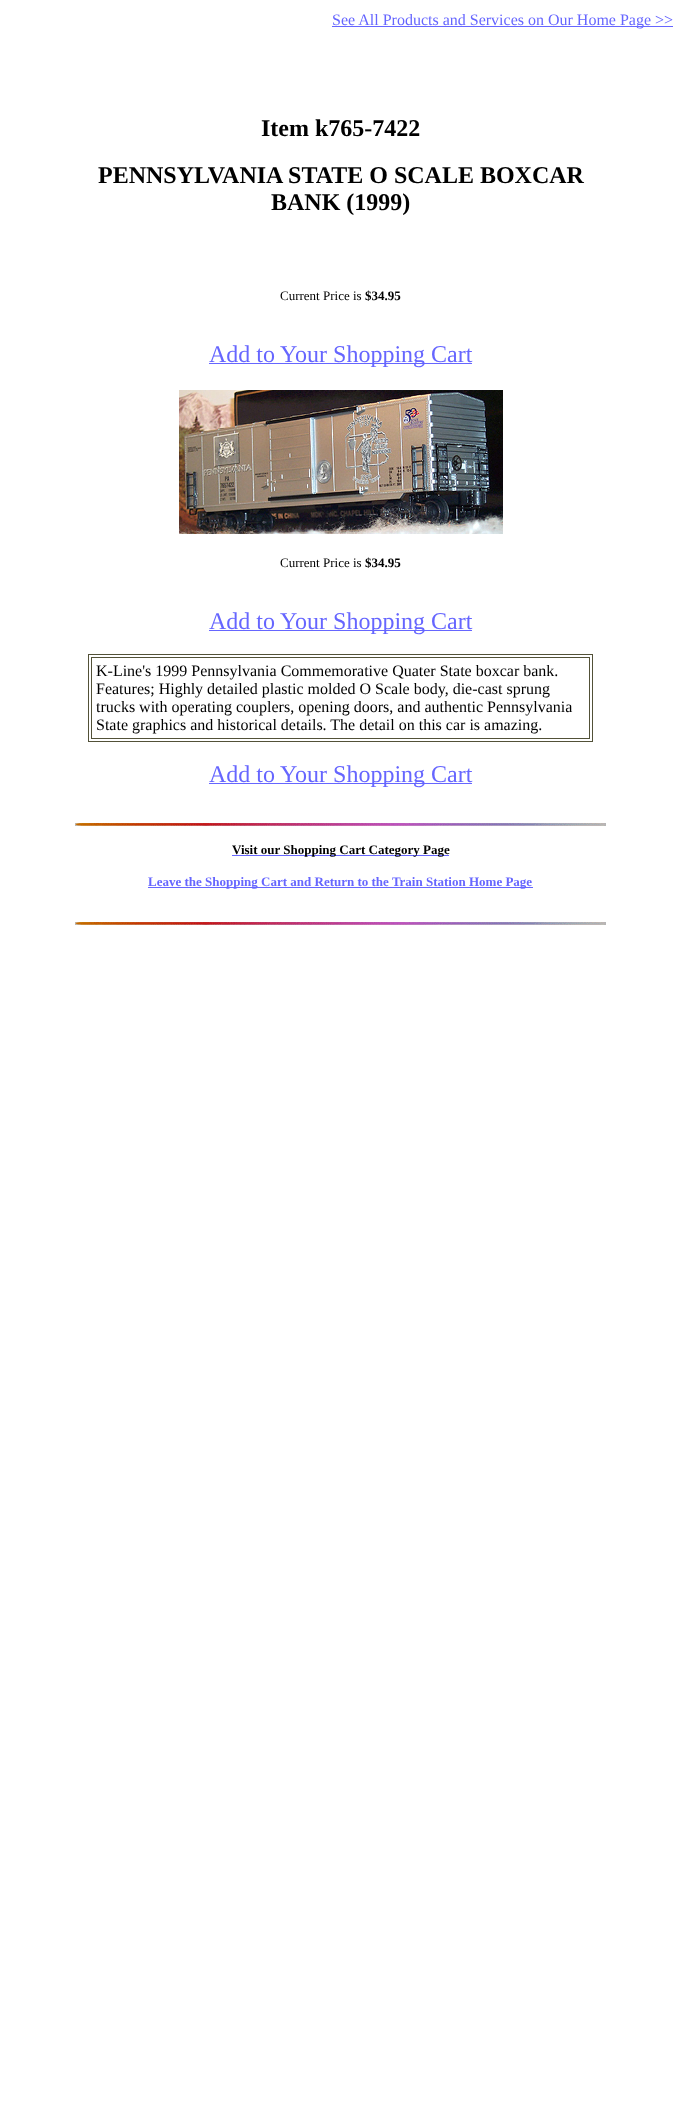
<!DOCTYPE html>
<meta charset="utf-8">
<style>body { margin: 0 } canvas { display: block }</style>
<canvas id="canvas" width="681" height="2115"></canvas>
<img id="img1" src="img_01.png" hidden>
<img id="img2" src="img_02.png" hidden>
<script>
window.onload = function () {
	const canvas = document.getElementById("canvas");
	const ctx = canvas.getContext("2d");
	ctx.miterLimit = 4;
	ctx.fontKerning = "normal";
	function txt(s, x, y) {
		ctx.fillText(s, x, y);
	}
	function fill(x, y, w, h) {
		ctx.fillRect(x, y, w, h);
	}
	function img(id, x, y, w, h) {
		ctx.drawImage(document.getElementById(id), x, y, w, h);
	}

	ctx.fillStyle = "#FFFFFF";
	fill(0, 0, 681, 2115);
	ctx.fillStyle = "#6666FF";
	fill(332, 26, 341, 1);
	fill(209, 363, 263, 1);
	img("img1", 179, 390, 324, 144);
	fill(209, 630, 263, 1);
	ctx.strokeStyle = "#525138";
	ctx.strokeRect(88.5, 654.5, 504, 87);
	ctx.strokeRect(91.5, 657.5, 498, 81);
	fill(209, 783, 263, 1);
	img("img2", 75, 823, 531, 3);
	fill(232, 855, 217, 1);
	fill(148, 887, 385, 1);
	img("img2", 75, 922, 531, 3);
	ctx.font = "16px Liberation Serif";
	txt("See All Products and Services on Our Home Page >>", 332, 25);
	ctx.font = "bold 24px Liberation Serif";
	ctx.fillStyle = "#000000";
	txt("Item k765-7422", 261, 136);
	txt("PENNSYLVANIA STATE O SCALE BOXCAR", 98, 183);
	txt("BANK (1999)", 271, 210);
	ctx.font = "13px Liberation Serif";
	txt("Current Price is", 280, 300);
	ctx.font = "bold 13px Liberation Serif";
	txt("$34.95", 365, 300);
	ctx.font = "24px Liberation Serif";
	ctx.fillStyle = "#6666FF";
	txt("Add to Your Shopping Cart", 209, 362);
	ctx.font = "13px Liberation Serif";
	ctx.fillStyle = "#000000";
	txt("Current Price is", 280, 567);
	ctx.font = "bold 13px Liberation Serif";
	txt("$34.95", 365, 567);
	ctx.font = "24px Liberation Serif";
	ctx.fillStyle = "#6666FF";
	txt("Add to Your Shopping Cart", 209, 629);
	ctx.font = "16px Liberation Serif";
	ctx.fillStyle = "#000000";
	txt("K-Line's 1999 Pennsylvania Commemorative Quater State boxcar bank.", 96, 676);
	txt("Features; Highly detailed plastic molded O Scale body, die-cast sprung", 96, 694);
	txt("trucks with operating couplers, opening doors, and authentic Pennsylvania", 96, 712);
	txt("State graphics and historical details. The detail on this car is amazing.", 96, 730);
	ctx.font = "24px Liberation Serif";
	ctx.fillStyle = "#6666FF";
	txt("Add to Your Shopping Cart", 209, 782);
	ctx.font = "bold 13px Liberation Serif";
	ctx.fillStyle = "#000000";
	txt("Visit our Shopping Cart Category Page", 232, 854);
	ctx.fillStyle = "#6666FF";
	txt("Leave the Shopping Cart and Return to the Train Station Home Page", 148, 886);
};
</script>
